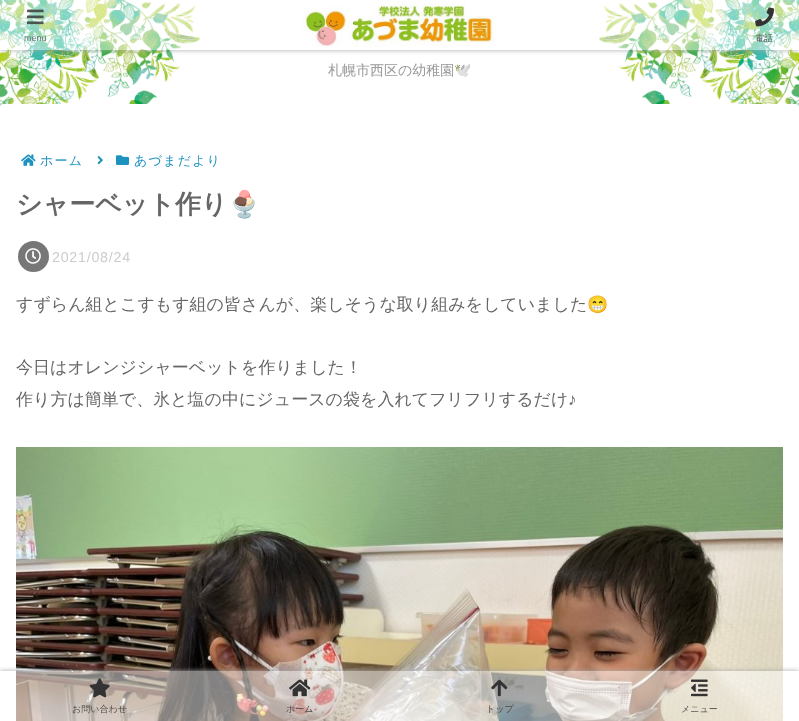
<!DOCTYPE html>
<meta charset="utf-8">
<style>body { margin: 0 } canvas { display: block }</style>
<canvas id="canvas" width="799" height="721"></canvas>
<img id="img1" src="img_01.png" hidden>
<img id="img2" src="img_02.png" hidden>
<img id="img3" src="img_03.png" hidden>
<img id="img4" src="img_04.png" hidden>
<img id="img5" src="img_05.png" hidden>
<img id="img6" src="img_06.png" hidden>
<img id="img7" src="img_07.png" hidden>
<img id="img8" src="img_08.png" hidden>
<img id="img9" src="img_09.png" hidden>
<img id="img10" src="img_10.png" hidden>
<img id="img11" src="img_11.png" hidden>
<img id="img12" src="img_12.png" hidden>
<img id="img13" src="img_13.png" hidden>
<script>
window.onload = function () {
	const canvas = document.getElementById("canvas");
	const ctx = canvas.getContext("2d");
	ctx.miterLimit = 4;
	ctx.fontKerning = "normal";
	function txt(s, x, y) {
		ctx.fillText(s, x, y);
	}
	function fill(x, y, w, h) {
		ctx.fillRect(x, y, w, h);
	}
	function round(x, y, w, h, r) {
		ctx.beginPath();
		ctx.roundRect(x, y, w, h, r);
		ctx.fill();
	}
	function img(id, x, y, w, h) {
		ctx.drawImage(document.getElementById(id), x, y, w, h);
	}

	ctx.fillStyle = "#FFFFFF";
	fill(0, 0, 799, 721);
	img("img1", 0, 0, 799, 108);
	ctx.save();
	ctx.beginPath();
	ctx.rect(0, 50, 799, 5);
	ctx.clip();
	ctx.fillStyle = "#A9A9A9";
	ctx.filter = "blur(2.5px)";
	ctx.beginPath();
	ctx.rect(0, 0, 799, 50);
	ctx.fill();
	ctx.filter = "none";
	ctx.restore();
	ctx.fillStyle = "rgba(255, 255, 255, 0.5)";
	fill(0, 0, 799, 50);
	img("img2", 27, 9, 17, 16);
	img("img3", 303, 0, 193, 47);
	img("img4", 755, 7, 19, 20);
	ctx.fillStyle = "#FFFFFF";
	round(0, 104, 799, 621, 4);
	img("img5", 21, 154, 15, 12);
	img("img6", 97, 156, 6, 9);
	img("img7", 116, 155, 13, 10);
	ctx.fillStyle = "#777777";
	ctx.beginPath();
	ctx.arc(33.5, 256.5, 15.5, 0, Math.PI * 2);
	ctx.fill();
	img("img8", 25, 248, 16, 16);
	img("img9", 16, 447, 767, 274);
	ctx.save();
	ctx.beginPath();
	ctx.rect(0, 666, 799, 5);
	ctx.clip();
	ctx.fillStyle = "#A9A9A9";
	ctx.filter = "blur(2.5px)";
	ctx.beginPath();
	ctx.rect(0, 671, 799, 50);
	ctx.fill();
	ctx.filter = "none";
	ctx.restore();
	ctx.fillStyle = "rgba(255, 255, 255, 0.5)";
	fill(16, 671, 767, 50);
	img("img10", 89, 678, 21, 20);
	img("img11", 289, 679, 22, 18);
	img("img12", 491, 679, 17, 18);
	img("img13", 691, 679, 17, 18);
	ctx.font = "9px Liberation Sans";
	ctx.fillStyle = "#687570";
	txt("menu", 24, 41);
	ctx.font = "500 9px WenQuanYi Zen Hei";
	ctx.fillStyle = "#4E5753";
	txt("電話", 755, 41);
	ctx.font = "500 14px WenQuanYi Zen Hei";
	ctx.fillStyle = "#999999";
	txt("札幌市西区の幼稚園", 328, 75);
	ctx.font = "14px Noto Color Emoji";
	txt("🕊️", 454, 75);
	ctx.letterSpacing = "1.25px";
	ctx.font = "500 13px WenQuanYi Zen Hei";
	ctx.fillStyle = "#1E92BF";
	txt("ホーム", 40, 165);
	txt("あづまだより", 134, 165);
	ctx.letterSpacing = "0px";
	ctx.font = "bold 26px WenQuanYi Zen Hei";
	ctx.fillStyle = "#666666";
	txt("シャーベット作り", 16, 213);
	ctx.font = "bold 26px Noto Color Emoji";
	txt("🍨", 228, 213);
	ctx.letterSpacing = "0.75px";
	ctx.font = "14.25px Liberation Sans";
	ctx.fillStyle = "#CCCCCC";
	txt("2021/08/24", 52, 262);
	ctx.letterSpacing = "0px";
	ctx.font = "500 17px WenQuanYi Zen Hei";
	ctx.fillStyle = "#666666";
	txt("すずらん組とこすもす組の皆さんが、楽しそうな取り組みをしていました", 16, 310);
	ctx.font = "17px Noto Color Emoji";
	txt("😁", 587, 310);
	ctx.font = "500 17px WenQuanYi Zen Hei";
	txt("今日はオレンジシャーベットを作りました！", 16, 373);
	txt("作り方は簡単で、氷と塩の中にジュースの袋を入れてフリフリするだけ", 16, 405);
	ctx.font = "17px Liberation Sans";
	txt("♪", 568, 405);
	ctx.font = "500 9px WenQuanYi Zen Hei";
	ctx.fillStyle = "#514F4D";
	txt("お問い合わせ", 72, 712);
	txt("ホーム", 286, 712);
	ctx.fillStyle = "#4A4B4B";
	txt("トップ", 486, 712);
	ctx.fillStyle = "#575652";
	txt("メニュー", 681, 712);
};
</script>
